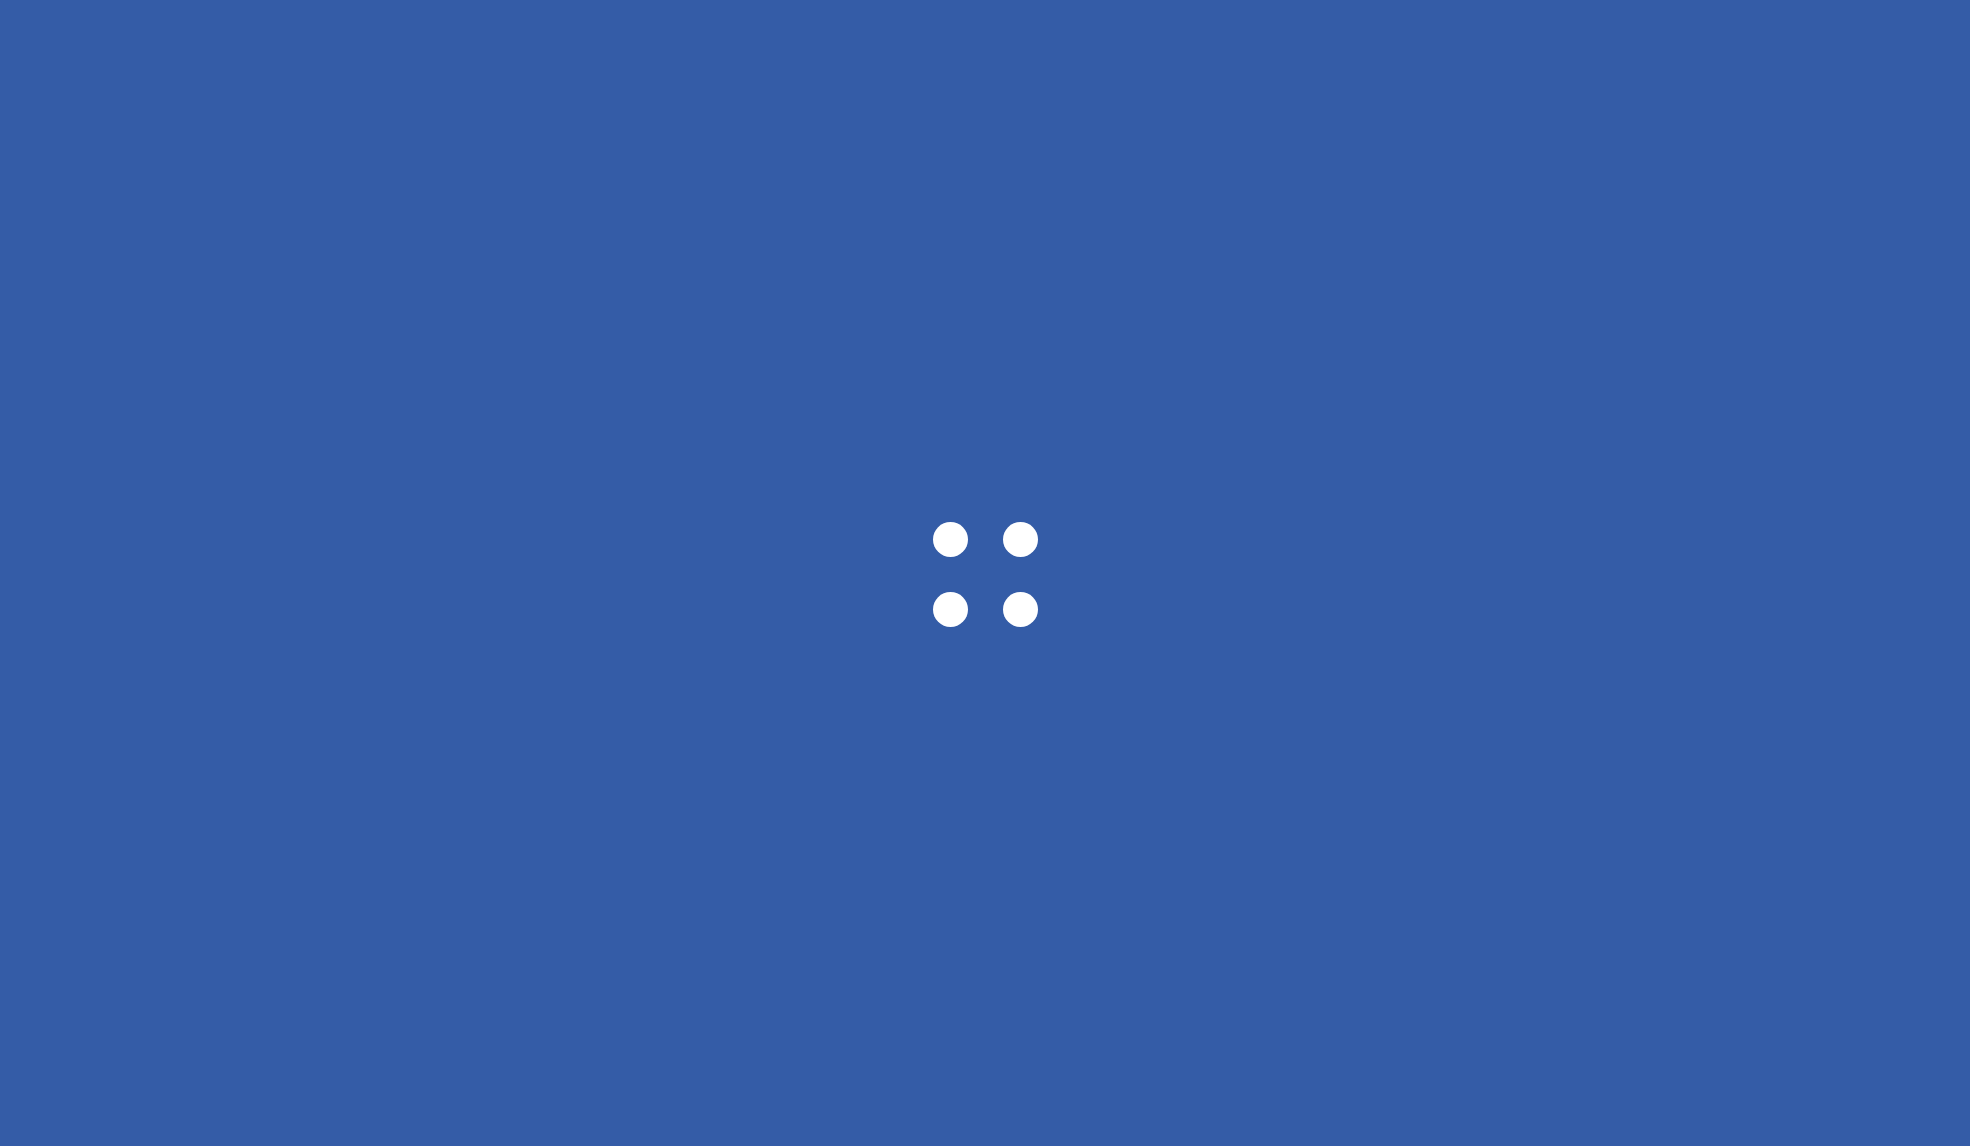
<!DOCTYPE html>
<meta charset="utf-8">
<style>body { margin: 0 } canvas { display: block }</style>
<canvas id="canvas" width="1970" height="1146"></canvas>
<script>
window.onload = function () {
	const canvas = document.getElementById("canvas");
	const ctx = canvas.getContext("2d");
	ctx.miterLimit = 4;
	ctx.fontKerning = "normal";
	function fill(x, y, w, h) {
		ctx.fillRect(x, y, w, h);
	}

	ctx.fillStyle = "#345CA7";
	fill(0, 0, 1970, 1146);
	ctx.fillStyle = "#FFFFFF";
	ctx.beginPath();
	ctx.arc(950.5, 539.5, 17.5, 0, Math.PI * 2);
	ctx.fill();
	ctx.beginPath();
	ctx.arc(1020.5, 539.5, 17.5, 0, Math.PI * 2);
	ctx.fill();
	ctx.beginPath();
	ctx.arc(950.5, 609.5, 17.5, 0, Math.PI * 2);
	ctx.fill();
	ctx.beginPath();
	ctx.arc(1020.5, 609.5, 17.5, 0, Math.PI * 2);
	ctx.fill();
};
</script>
